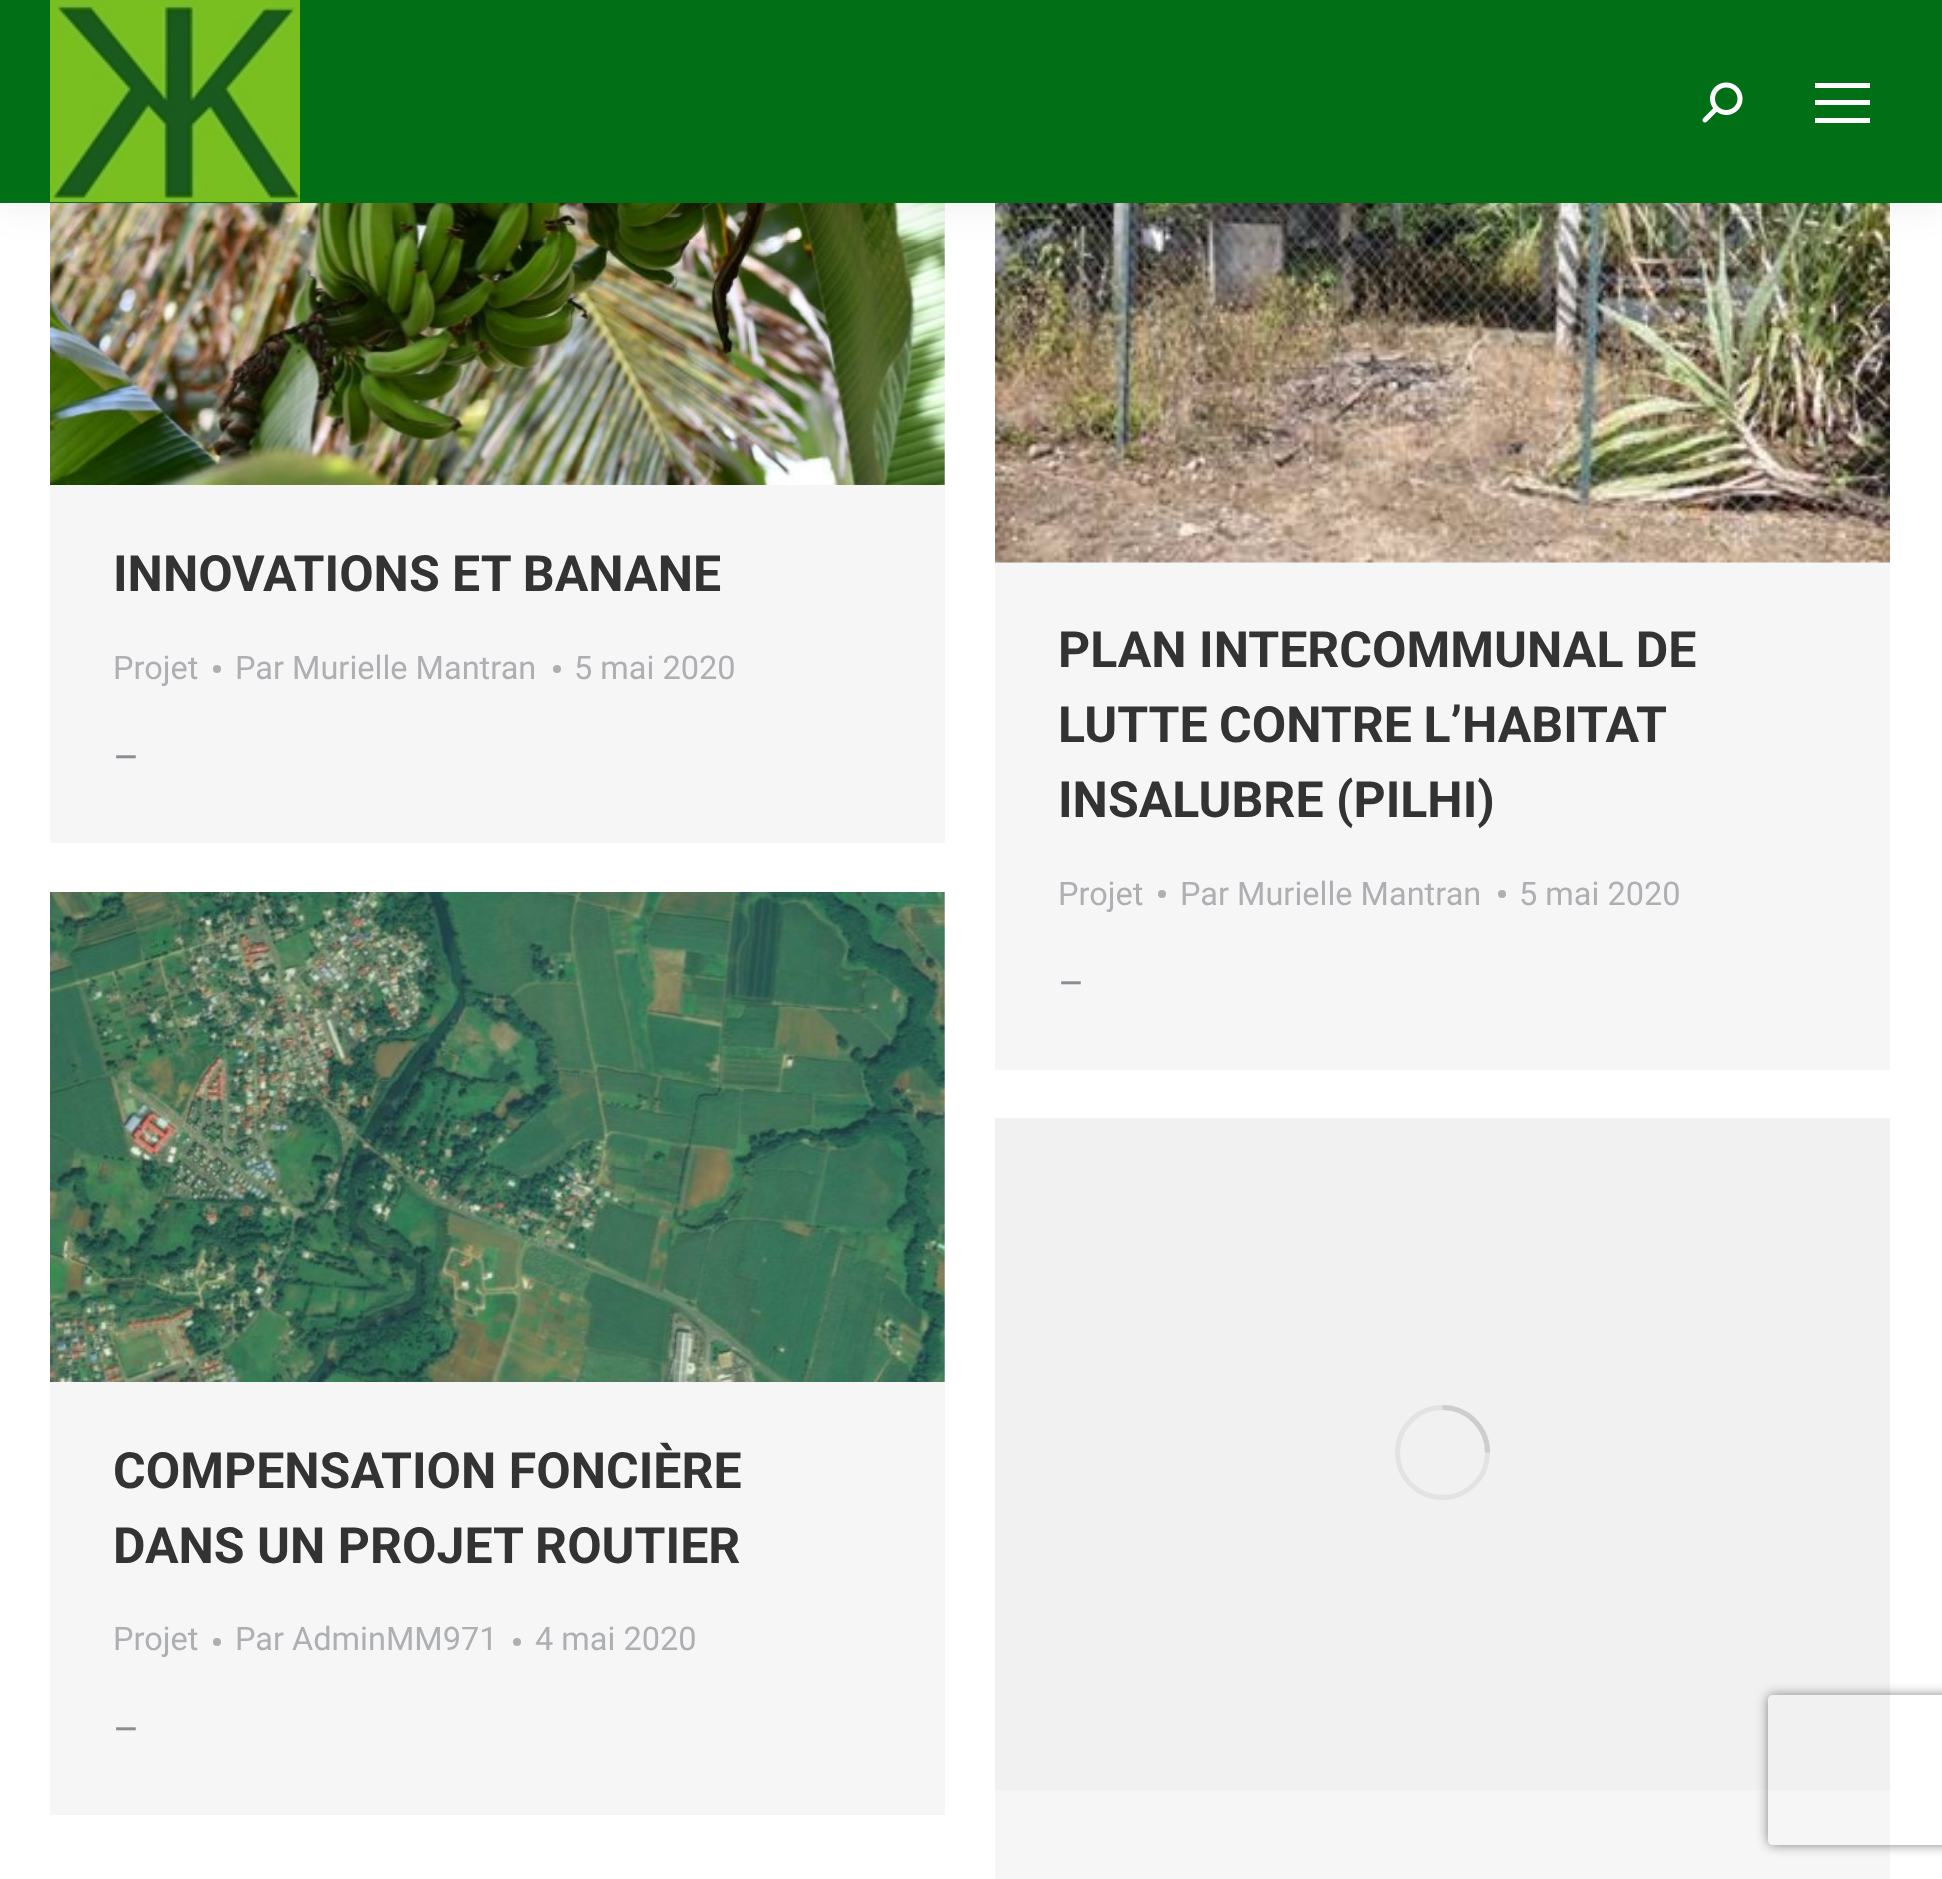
<!DOCTYPE html>
<meta charset="utf-8">
<style>body { margin: 0 } canvas { display: block }</style>
<canvas id="canvas" width="1942" height="1879"></canvas>
<img id="img1" src="img_03.png" hidden>
<img id="img2" src="img_04.png" hidden>
<img id="img3" src="img_01.png" hidden>
<img id="img4" src="img_02.png" hidden>
<img id="img5" src="img_05.png" hidden>
<script>
window.onload = function () {
	const canvas = document.getElementById("canvas");
	const ctx = canvas.getContext("2d");
	ctx.miterLimit = 4;
	ctx.fontKerning = "normal";
	function txt(s, x, y) {
		ctx.fillText(s, x, y);
	}
	function fill(x, y, w, h) {
		ctx.fillRect(x, y, w, h);
	}
	function img(id, x, y, w, h) {
		ctx.drawImage(document.getElementById(id), x, y, w, h);
	}

	ctx.fillStyle = "#FFFFFF";
	fill(0, 0, 1942, 1879);
	ctx.fillStyle = "#F6F6F6";
	fill(50, 203, 895, 640);
	img("img1", 50, 203, 895, 282);
	fill(995, 561, 895, 509);
	img("img2", 995, 203, 895, 360);
	ctx.fillStyle = "rgba(0, 0, 0, 0.07)";
	ctx.filter = "blur(19px)";
	ctx.beginPath();
	ctx.rect(-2, -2, 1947, 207);
	ctx.fill();
	ctx.filter = "none";
	ctx.fillStyle = "#006F15";
	fill(0, 0, 1942, 203);
	img("img3", 50, 0, 250, 202);
	img("img4", 1702, 82, 41, 41);
	ctx.fillStyle = "#FFFFFF";
	fill(1815, 83, 55, 5);
	fill(1815, 100, 55, 5);
	fill(1815, 118, 55, 5);
	ctx.fillStyle = "#ADAFB3";
	ctx.beginPath();
	ctx.arc(217, 669, 4, 0, Math.PI * 2);
	ctx.fill();
	ctx.beginPath();
	ctx.arc(557, 669, 4, 0, Math.PI * 2);
	ctx.fill();
	ctx.beginPath();
	ctx.arc(1162, 894, 4, 0, Math.PI * 2);
	ctx.fill();
	ctx.beginPath();
	ctx.arc(1502, 894, 4, 0, Math.PI * 2);
	ctx.fill();
	ctx.fillStyle = "#F6F6F6";
	fill(50, 893, 895, 922);
	img("img5", 50, 892, 895, 490);
	ctx.fillStyle = "#ADAFB3";
	ctx.beginPath();
	ctx.arc(217, 1642, 4, 0, Math.PI * 2);
	ctx.fill();
	ctx.beginPath();
	ctx.arc(517, 1642, 4, 0, Math.PI * 2);
	ctx.fill();
	ctx.fillStyle = "#F6F6F6";
	fill(995, 1790, 895, 89);
	ctx.fillStyle = "#F1F1F2";
	fill(995, 1118, 895, 672);
	ctx.beginPath();
	ctx.arc(1442.5, 1452.5, 45, 0, Math.PI * 2);
	ctx.strokeStyle = "#E3E3E5";
	ctx.lineWidth = 5;
	ctx.stroke();
	ctx.beginPath();
	ctx.moveTo(1487.5, 1452.5);
	ctx.bezierCurveTo(1487.5, 1427.5, 1467.5, 1407.5, 1442.5, 1407.5);
	ctx.strokeStyle = "rgba(139, 141, 148, 0.25)";
	ctx.stroke();
	ctx.save();
	ctx.beginPath();
	ctx.moveTo(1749, 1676);
	ctx.lineTo(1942, 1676);
	ctx.lineTo(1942, 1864);
	ctx.lineTo(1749, 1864);
	ctx.closePath();
	ctx.moveTo(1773, 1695);
	ctx.lineTo(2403, 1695);
	ctx.bezierCurveTo(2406, 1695, 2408, 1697, 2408, 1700);
	ctx.lineTo(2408, 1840);
	ctx.bezierCurveTo(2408, 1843, 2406, 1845, 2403, 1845);
	ctx.lineTo(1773, 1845);
	ctx.bezierCurveTo(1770, 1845, 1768, 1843, 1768, 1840);
	ctx.lineTo(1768, 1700);
	ctx.bezierCurveTo(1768, 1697, 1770, 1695, 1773, 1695);
	ctx.closePath();
	ctx.clip("evenodd");
	ctx.fillStyle = "#808080";
	ctx.filter = "blur(6px)";
	ctx.beginPath();
	ctx.roundRect(1768, 1695, 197, 150, 5);
	ctx.fill();
	ctx.filter = "none";
	ctx.restore();
	ctx.font = "bold 50px Roboto";
	ctx.fillStyle = "#333333";
	txt("INNOVATIONS ET BANANE", 113, 591);
	ctx.font = "32.5px Roboto";
	ctx.fillStyle = "#ADAFB3";
	txt("Projet", 113, 679);
	txt("Par Murielle Mantran", 235, 679);
	txt("5 mai 2020", 574, 679);
	ctx.font = "40px Roboto";
	ctx.fillStyle = "#8B8D94";
	txt("–", 113, 771);
	ctx.font = "bold 50px Roboto";
	ctx.fillStyle = "#333333";
	txt("PLAN INTERCOMMUNAL DE", 1058, 667);
	ctx.wordSpacing = "-1px";
	txt("LUTTE CONTRE L’HABITAT", 1058, 742);
	ctx.wordSpacing = "0px";
	txt("INSALUBRE (PILHI)", 1058, 817);
	ctx.font = "32.5px Roboto";
	ctx.fillStyle = "#ADAFB3";
	txt("Projet", 1058, 905);
	txt("Par Murielle Mantran", 1180, 905);
	txt("5 mai 2020", 1519, 905);
	ctx.font = "40px Roboto";
	ctx.fillStyle = "#8B8D94";
	txt("–", 1058, 997);
	ctx.font = "bold 50px Roboto";
	ctx.fillStyle = "#333333";
	txt("COMPENSATION FONCIÈRE", 113, 1488);
	txt("DANS UN PROJET ROUTIER", 113, 1563);
	ctx.font = "32.5px Roboto";
	ctx.fillStyle = "#ADAFB3";
	txt("Projet", 113, 1650);
	txt("Par AdminMM971", 235, 1650);
	txt("4 mai 2020", 535, 1650);
	ctx.font = "40px Roboto";
	ctx.fillStyle = "#8B8D94";
	txt("–", 113, 1743);
};
</script>
